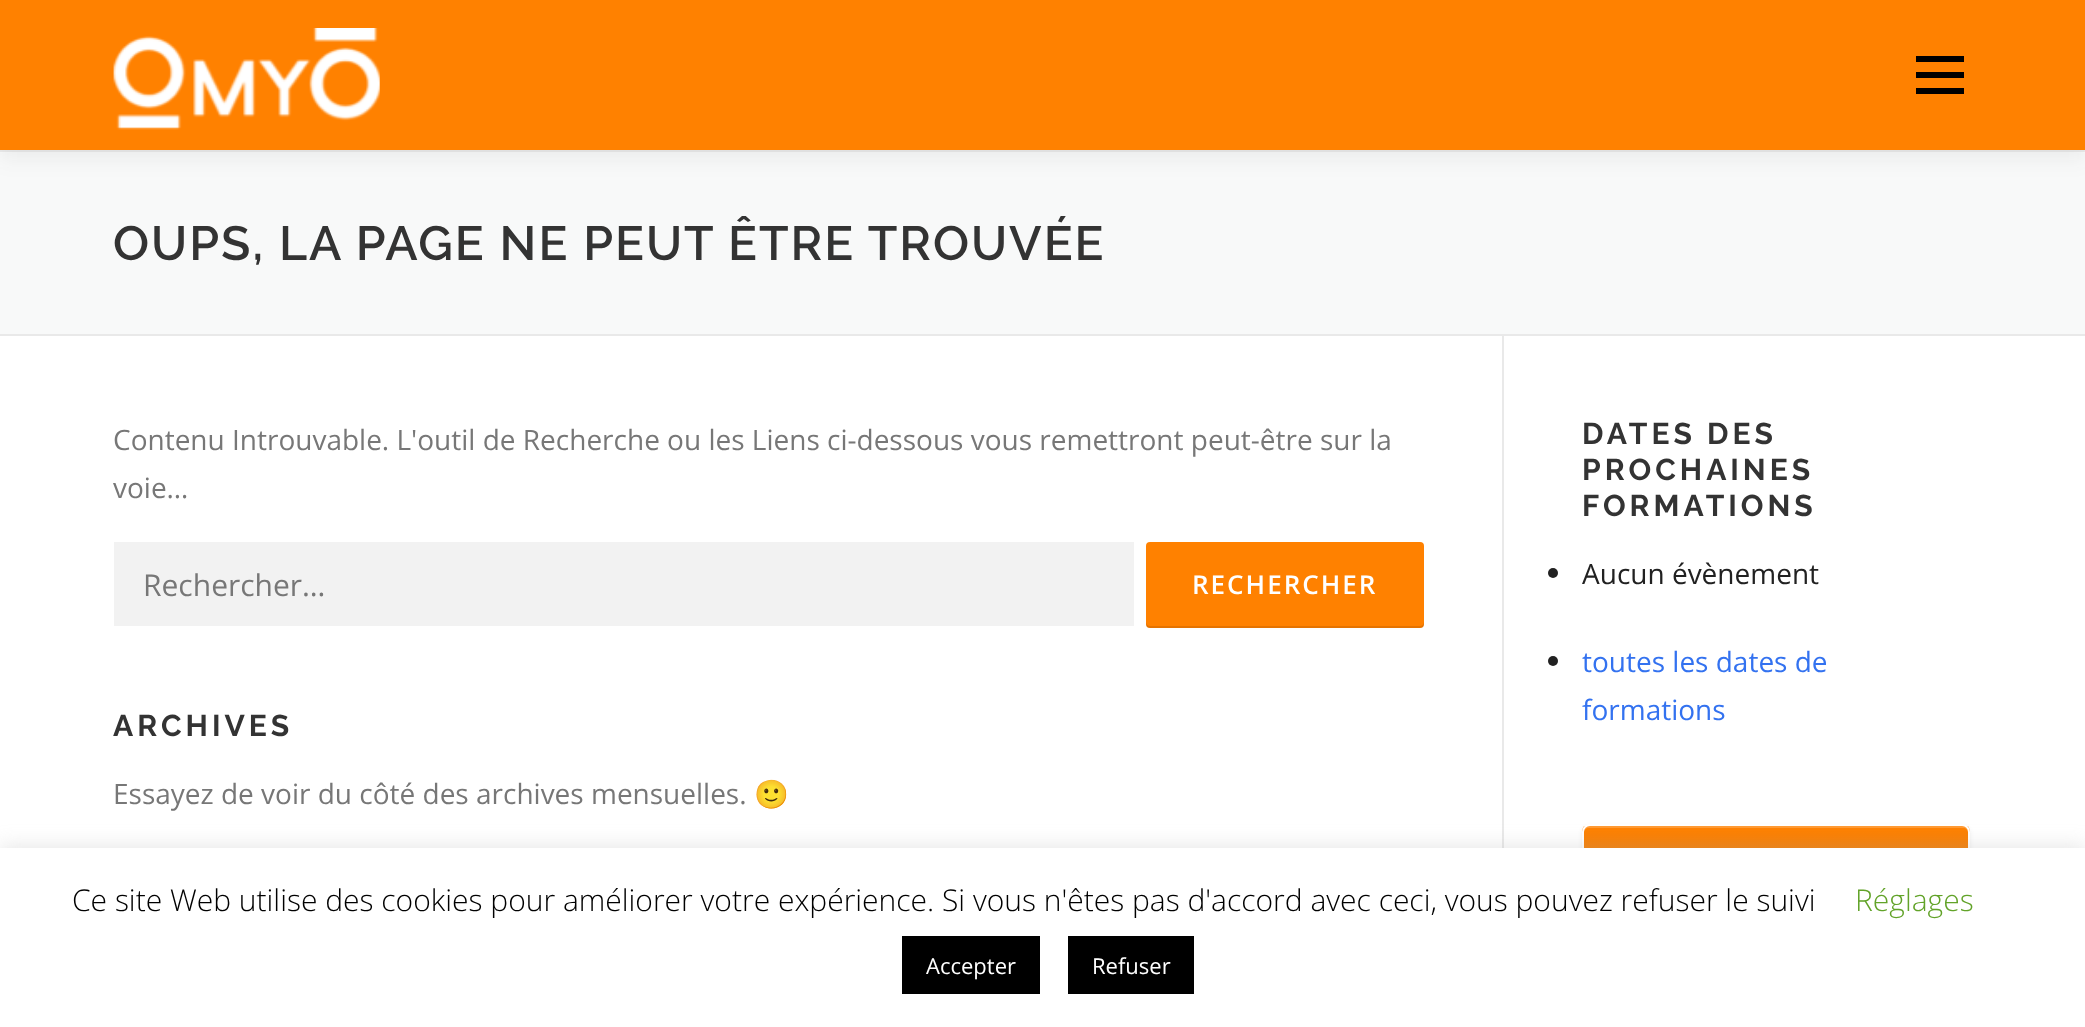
<!DOCTYPE html>
<meta charset="utf-8">
<style>body { margin: 0 } canvas { display: block }</style>
<canvas id="canvas" width="2085" height="1027"></canvas>
<img id="img1" src="img_01.png" hidden>
<script>
window.onload = function () {
	const canvas = document.getElementById("canvas");
	const ctx = canvas.getContext("2d");
	ctx.miterLimit = 4;
	ctx.fontKerning = "normal";
	function txt(s, x, y) {
		ctx.fillText(s, x, y);
	}
	function fill(x, y, w, h) {
		ctx.fillRect(x, y, w, h);
	}
	function round(x, y, w, h, r) {
		ctx.beginPath();
		ctx.roundRect(x, y, w, h, r);
		ctx.fill();
	}
	function img(id, x, y, w, h) {
		ctx.drawImage(document.getElementById(id), x, y, w, h);
	}
	let gradient;

	ctx.fillStyle = "#FFFFFF";
	fill(0, 0, 2085, 1027);
	ctx.fillStyle = "#F8F9F9";
	fill(0, 152, 2085, 182);
	ctx.fillStyle = "#E9E9E9";
	fill(0, 150, 2085, 2);
	ctx.fillStyle = "rgba(50, 50, 50, 0.06)";
	ctx.filter = "blur(10px)";
	ctx.beginPath();
	ctx.rect(0, 10, 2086, 150);
	ctx.fill();
	ctx.filter = "none";
	ctx.fillStyle = "#FF8100";
	fill(0, 0, 2085, 150);
	img("img1", 113, 28, 267, 102);
	ctx.fillStyle = "#000000";
	fill(1916, 72, 48, 6);
	fill(1916, 56, 48, 6);
	fill(1916, 88, 48, 6);
	ctx.fillStyle = "#E9E9E9";
	fill(0, 334, 2085, 2);
	fill(1502, 336, 2, 512);
	ctx.fillStyle = "#F2F2F2";
	fill(114, 542, 1020, 84);
	ctx.fillStyle = "#FF8100";
	round(1146, 542, 278, 86, 4);
	ctx.fillStyle = "rgba(0, 0, 0, 0.1)";
	ctx.beginPath();
	ctx.moveTo(1146, 622);
	ctx.bezierCurveTo(1146, 625, 1146, 628, 1150, 628);
	ctx.lineTo(1420, 628);
	ctx.bezierCurveTo(1424, 628, 1424, 625, 1424, 622);
	ctx.bezierCurveTo(1424, 624, 1422, 626, 1420, 626);
	ctx.lineTo(1150, 626);
	ctx.bezierCurveTo(1148, 626, 1146, 624, 1146, 622);
	ctx.closePath();
	ctx.fill();
	ctx.fillStyle = "#212121";
	ctx.beginPath();
	ctx.arc(1553, 573, 5, 0, Math.PI * 2);
	ctx.fill();
	ctx.beginPath();
	ctx.arc(1553, 661, 5, 0, Math.PI * 2);
	ctx.fill();
	ctx.fillStyle = "rgba(0, 0, 0, 0.07)";
	ctx.filter = "blur(2px)";
	ctx.beginPath();
	ctx.roundRect(1582, 826, 388, 116, 8);
	ctx.fill();
	ctx.filter = "none";
	ctx.save();
	ctx.beginPath();
	ctx.roundRect(1582, 824, 388, 116, 8);
	ctx.clip();
	gradient = ctx.createLinearGradient(1584, 938, 1584, 826);
	gradient.addColorStop(0, "#CC6700");
	gradient.addColorStop(1, "#FF8100");
	ctx.fillStyle = gradient;
	fill(1582, 826, 388, 22);
	ctx.restore();
	ctx.fillStyle = "#FF9A33";
	ctx.beginPath();
	ctx.moveTo(1589, 828);
	ctx.lineTo(1963, 828);
	ctx.bezierCurveTo(1966, 828, 1968, 830, 1968, 833);
	ctx.bezierCurveTo(1968, 830, 1967, 826, 1963, 826);
	ctx.lineTo(1589, 826);
	ctx.bezierCurveTo(1585, 826, 1584, 830, 1584, 833);
	ctx.bezierCurveTo(1584, 830, 1586, 828, 1589, 828);
	ctx.closePath();
	ctx.fill();
	ctx.beginPath();
	ctx.roundRect(1583, 825, 386, 114, 7);
	ctx.strokeStyle = "#FFFFFF";
	ctx.lineWidth = 2;
	ctx.stroke();
	ctx.fillStyle = "rgba(172, 171, 171, 0.3)";
	ctx.filter = "blur(10px)";
	ctx.beginPath();
	ctx.rect(0, 846, 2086, 180);
	ctx.fill();
	ctx.filter = "none";
	ctx.fillStyle = "#FFFFFF";
	fill(0, 848, 2085, 179);
	ctx.fillStyle = "#000000";
	fill(902, 936, 138, 58);
	fill(1068, 936, 126, 58);
	ctx.letterSpacing = "2px";
	ctx.font = "600 48px Raleway";
	ctx.fillStyle = "#333333";
	txt("OUPS, LA PAGE NE PEUT ÊTRE TROUVÉE", 113, 260);
	ctx.letterSpacing = "0px";
	ctx.font = "28px Open Sans";
	ctx.fillStyle = "#777777";
	txt("Contenu Introuvable. L'outil de Recherche ou les Liens ci-dessous vous remettront peut-être sur la", 113, 450);
	txt("voie…", 113, 498);
	ctx.font = "30px Open Sans";
	txt("Rechercher…", 143, 596);
	ctx.letterSpacing = "2px";
	ctx.font = "600 26px Open Sans";
	ctx.fillStyle = "#FFFFFF";
	txt("RECHERCHER", 1192, 594);
	ctx.letterSpacing = "4px";
	ctx.font = "bold 30px Raleway";
	ctx.fillStyle = "#333333";
	txt("ARCHIVES", 113, 736);
	ctx.letterSpacing = "0px";
	ctx.font = "28px Open Sans";
	ctx.fillStyle = "#777777";
	txt("Essayez de voir du côté des archives mensuelles.", 113, 804);
	ctx.font = "28px Noto Color Emoji";
	txt("🙂", 754, 804);
	ctx.letterSpacing = "4px";
	ctx.font = "bold 30px Raleway";
	ctx.fillStyle = "#333333";
	txt("DATES DES", 1582, 444);
	txt("PROCHAINES", 1582, 480);
	txt("FORMATIONS", 1582, 516);
	ctx.letterSpacing = "0px";
	ctx.font = "28px Open Sans";
	ctx.fillStyle = "#212121";
	txt("Aucun évènement", 1582, 584);
	ctx.fillStyle = "#3372F0";
	txt("toutes les dates de", 1582, 672);
	txt("formations", 1582, 720);
	ctx.font = "300 30px Open Sans";
	ctx.fillStyle = "#000000";
	txt("Ce site Web utilise des cookies pour améliorer votre expérience. Si vous n'êtes pas d'accord avec ceci, vous pouvez refuser le suivi", 72, 911);
	ctx.fillStyle = "#62A329";
	txt("Réglages", 1855, 911);
	ctx.font = "22px Open Sans";
	ctx.fillStyle = "#FFFFFF";
	txt("Accepter", 926, 974);
	txt("Refuser", 1092, 974);
};
</script>
